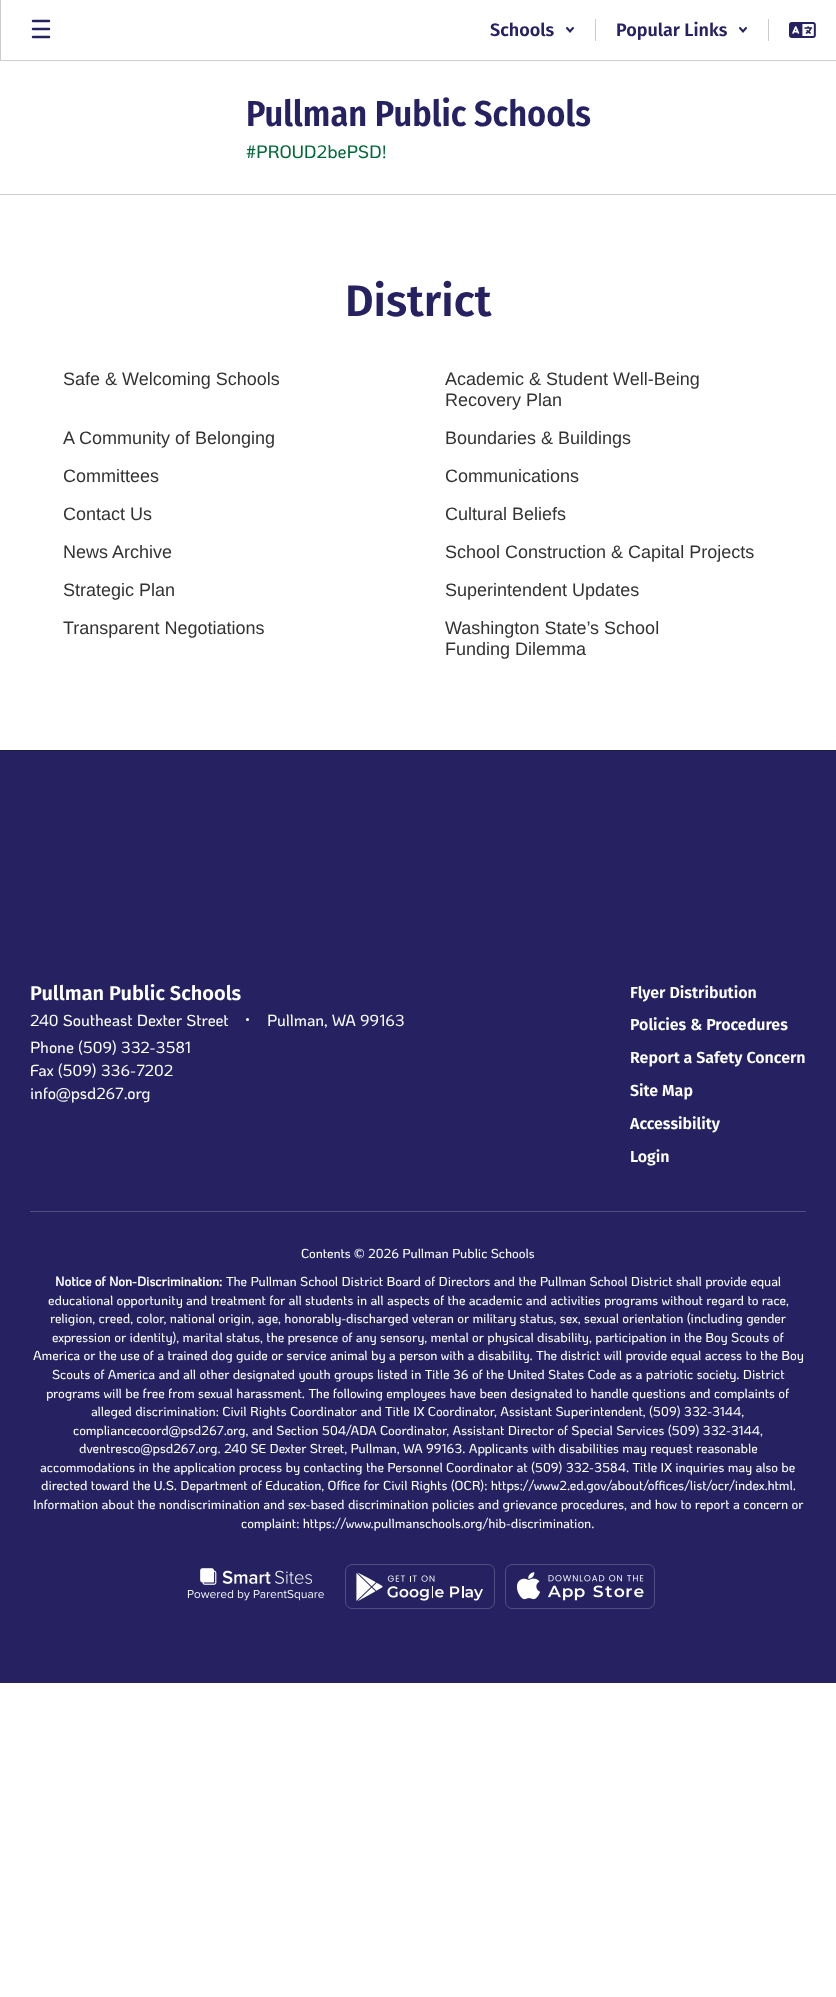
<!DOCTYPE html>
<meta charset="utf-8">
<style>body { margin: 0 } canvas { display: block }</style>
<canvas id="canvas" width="836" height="1997"></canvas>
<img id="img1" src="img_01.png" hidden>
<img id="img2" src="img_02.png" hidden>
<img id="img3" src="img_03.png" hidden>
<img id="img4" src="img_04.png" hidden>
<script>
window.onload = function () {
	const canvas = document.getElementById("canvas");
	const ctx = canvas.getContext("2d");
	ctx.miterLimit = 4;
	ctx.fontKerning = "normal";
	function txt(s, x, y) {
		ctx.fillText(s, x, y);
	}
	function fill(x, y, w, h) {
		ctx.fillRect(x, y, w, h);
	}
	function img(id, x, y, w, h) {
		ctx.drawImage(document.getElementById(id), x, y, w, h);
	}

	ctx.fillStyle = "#FFFFFF";
	fill(0, 0, 836, 1997);
	ctx.fillStyle = "#CCCCCC";
	fill(0, 60, 836, 1);
	fill(0, 0, 1, 60);
	ctx.beginPath();
	ctx.moveTo(33, 21);
	ctx.lineTo(49, 21);
	ctx.moveTo(33, 29);
	ctx.lineTo(49, 29);
	ctx.moveTo(33, 37);
	ctx.lineTo(49, 37);
	ctx.strokeStyle = "#262262";
	ctx.lineWidth = 2.5;
	ctx.lineCap = "round";
	ctx.stroke();
	ctx.beginPath();
	ctx.moveTo(567, 28);
	ctx.lineTo(570, 31.5);
	ctx.lineTo(573, 28);
	ctx.lineWidth = 2;
	ctx.stroke();
	fill(595, 19, 1, 22);
	ctx.beginPath();
	ctx.moveTo(740, 28);
	ctx.lineTo(743, 31.5);
	ctx.lineTo(746, 28);
	ctx.stroke();
	fill(768, 19, 1, 22);
	img("img1", 789, 22, 27, 16);
	fill(0, 194, 836, 1);
	ctx.fillStyle = "#1E1B4E";
	fill(0, 750, 836, 1);
	ctx.fillStyle = "#262262";
	fill(0, 751, 836, 932);
	ctx.fillStyle = "#FFFFFF";
	ctx.beginPath();
	ctx.arc(247.5, 1019.5, 1.5, 0, Math.PI * 2);
	ctx.fill();
	ctx.fillStyle = "#514E81";
	fill(30, 1211, 776, 1);
	img("img2", 187, 1568, 137, 33);
	ctx.beginPath();
	ctx.roundRect(345.5, 1564.5, 149, 44, 6.5);
	ctx.strokeStyle = "#514E81";
	ctx.lineWidth = 1;
	ctx.stroke();
	img("img3", 356, 1572, 127, 30);
	ctx.beginPath();
	ctx.roundRect(505.5, 1564.5, 149, 44, 6.5);
	ctx.stroke();
	img("img4", 516, 1572, 128, 29);
	ctx.font = "600 18px Fira Sans";
	ctx.fillStyle = "#262262";
	txt("Schools", 490, 36);
	txt("Popular Links", 616, 36);
	ctx.font = "600 36px Fira Sans Condensed";
	txt("Pullman Public Schools", 246, 126);
	ctx.font = "500 18px KoHo";
	ctx.fillStyle = "#006838";
	txt("#PROUD2bePSD!", 246, 158);
	ctx.font = "600 44px Fira Sans";
	ctx.fillStyle = "#262262";
	txt("District", 345, 316);
	ctx.font = "18px Liberation Sans";
	ctx.fillStyle = "#333333";
	txt("Safe & Welcoming Schools", 63, 385);
	txt("Academic & Student Well-Being", 445, 385);
	txt("Recovery Plan", 445, 406);
	txt("A Community of Belonging", 63, 444);
	txt("Boundaries & Buildings", 445, 444);
	txt("Committees", 63, 482);
	txt("Communications", 445, 482);
	txt("Contact Us", 63, 520);
	txt("Cultural Beliefs", 445, 520);
	txt("News Archive", 63, 558);
	txt("School Construction & Capital Projects", 445, 558);
	txt("Strategic Plan", 63, 596);
	txt("Superintendent Updates", 445, 596);
	txt("Transparent Negotiations", 63, 634);
	txt("Washington State’s School", 445, 634);
	txt("Funding Dilemma", 445, 655);
	ctx.font = "600 20px Fira Sans";
	ctx.fillStyle = "#FFFFFF";
	txt("Pullman Public Schools", 30, 1000);
	ctx.font = "500 16px KoHo";
	txt("240 Southeast Dexter Street", 30, 1026);
	txt("Pullman, WA 99163", 267, 1026);
	txt("Phone (509) 332-3581", 30, 1053);
	txt("Fax (509) 336-7202", 30, 1076);
	txt("info@psd267.org", 30, 1099);
	ctx.font = "600 16px Fira Sans";
	txt("Flyer Distribution", 630, 998);
	txt("Policies & Procedures", 630, 1030);
	txt("Report a Safety Concern", 630, 1063);
	txt("Site Map", 630, 1096);
	txt("Accessibility", 630, 1129);
	txt("Login", 630, 1162);
	ctx.font = "500 13px KoHo";
	txt("Contents © 2026 Pullman Public Schools", 301, 1258);
	ctx.font = "bold 13px KoHo";
	txt("Notice of Non-Discrimination:", 55, 1286);
	ctx.font = "500 13px KoHo";
	txt("The Pullman School District Board of Directors and the Pullman School District shall provide equal", 226, 1286);
	txt("educational opportunity and treatment for all students in all aspects of the academic and activities programs without regard to race,", 48, 1305);
	txt("religion, creed, color, national origin, age, honorably-discharged veteran or military status, sex, sexual orientation (including gender", 50, 1323);
	txt("expression or identity), marital status, the presence of any sensory, mental or physical disability, participation in the Boy Scouts of", 52, 1342);
	txt("America or the use of a trained dog guide or service animal by a person with a disability. The district will provide equal access to the Boy", 33, 1360);
	txt("Scouts of America and all other designated youth groups listed in Title 36 of the United States Code as a patriotic society. District", 52, 1379);
	txt("programs will be free from sexual harassment. The following employees have been designated to handle questions and complaints of", 46, 1398);
	txt("alleged discrimination: Civil Rights Coordinator and Title IX Coordinator, Assistant Superintendent, (509) 332-3144,", 91, 1416);
	txt("compliancecoord@psd267.org, and Section 504/ADA Coordinator, Assistant Director of Special Services (509) 332-3144,", 73, 1435);
	txt("dventresco@psd267.org. 240 SE Dexter Street, Pullman, WA 99163. Applicants with disabilities may request reasonable", 79, 1453);
	txt("accommodations in the application process by contacting the Personnel Coordinator at (509) 332-3584. Title IX inquiries may also be", 40, 1472);
	txt("directed toward the U.S. Department of Education, Office for Civil Rights (OCR): https://www2.ed.gov/about/offices/list/ocr/index.html.", 41, 1490);
	txt("Information about the nondiscrimination and sex-based discrimination policies and grievance procedures, and how to report a concern or", 33, 1509);
	txt("complaint: https://www.pullmanschools.org/hib-discrimination.", 241, 1528);
};
</script>
